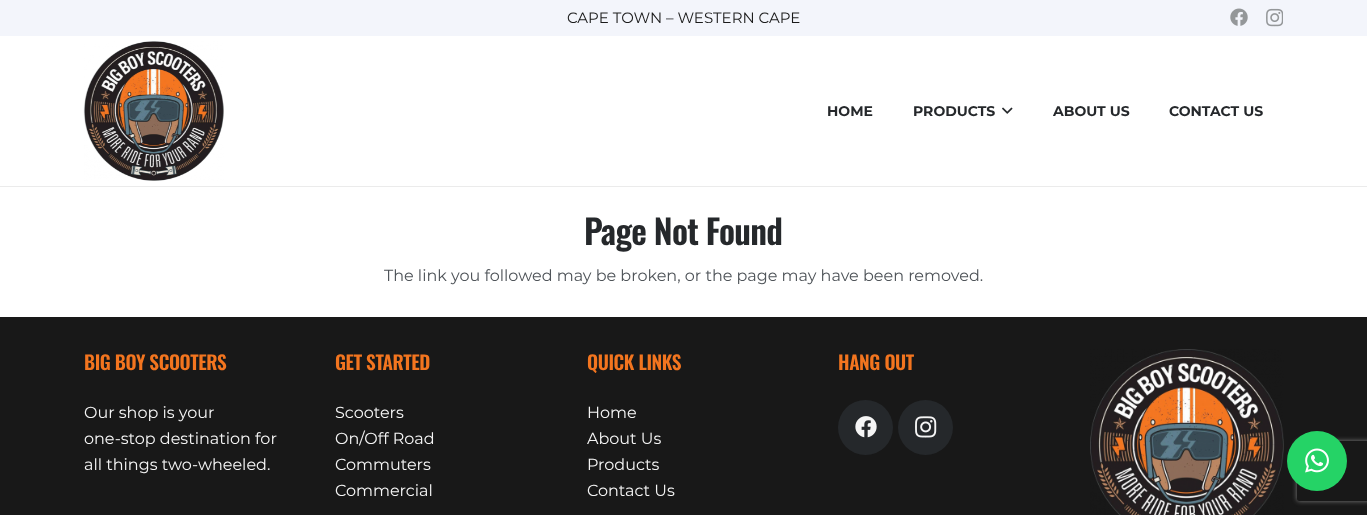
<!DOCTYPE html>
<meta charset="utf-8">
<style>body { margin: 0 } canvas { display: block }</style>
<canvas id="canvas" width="1367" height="515"></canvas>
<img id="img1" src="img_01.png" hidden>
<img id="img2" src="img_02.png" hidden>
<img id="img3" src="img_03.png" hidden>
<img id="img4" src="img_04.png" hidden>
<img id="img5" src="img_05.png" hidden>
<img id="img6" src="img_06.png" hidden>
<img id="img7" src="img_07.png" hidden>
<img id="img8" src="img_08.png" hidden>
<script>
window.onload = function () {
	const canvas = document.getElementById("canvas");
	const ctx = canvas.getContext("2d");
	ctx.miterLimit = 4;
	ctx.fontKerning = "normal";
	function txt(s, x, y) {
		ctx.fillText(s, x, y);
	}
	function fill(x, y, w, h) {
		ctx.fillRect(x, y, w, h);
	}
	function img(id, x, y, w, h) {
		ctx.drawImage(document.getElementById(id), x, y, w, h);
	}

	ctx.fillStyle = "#FFFFFF";
	fill(0, 0, 1367, 515);
	ctx.fillStyle = "#F3F5FB";
	fill(0, 0, 1367, 36);
	img("img1", 1230, 8, 18, 18);
	img("img2", 1266, 8, 17, 19);
	ctx.fillStyle = "#EBEBEB";
	fill(0, 186, 1367, 1);
	img("img3", 83, 41, 141, 140);
	img("img4", 1002, 107, 11, 7);
	ctx.fillStyle = "#181818";
	fill(0, 317, 1367, 198);
	ctx.fillStyle = "#25282B";
	ctx.beginPath();
	ctx.arc(865.5, 427.5, 27.5, 0, Math.PI * 2);
	ctx.fill();
	img("img5", 855, 416, 22, 22);
	ctx.beginPath();
	ctx.arc(925.5, 427.5, 27.5, 0, Math.PI * 2);
	ctx.fill();
	img("img6", 915, 416, 22, 22);
	img("img7", 1090, 349, 194, 166);
	ctx.save();
	ctx.beginPath();
	ctx.moveTo(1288, 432);
	ctx.lineTo(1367, 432);
	ctx.lineTo(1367, 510);
	ctx.lineTo(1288, 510);
	ctx.closePath();
	ctx.moveTo(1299, 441);
	ctx.lineTo(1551, 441);
	ctx.bezierCurveTo(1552, 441, 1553, 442, 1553, 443);
	ctx.lineTo(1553, 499);
	ctx.bezierCurveTo(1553, 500, 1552, 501, 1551, 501);
	ctx.lineTo(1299, 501);
	ctx.bezierCurveTo(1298, 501, 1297, 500, 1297, 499);
	ctx.lineTo(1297, 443);
	ctx.bezierCurveTo(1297, 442, 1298, 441, 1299, 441);
	ctx.closePath();
	ctx.clip("evenodd");
	ctx.fillStyle = "#808080";
	ctx.filter = "blur(2.5px)";
	ctx.beginPath();
	ctx.roundRect(1297, 441, 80, 60, 2);
	ctx.fill();
	ctx.filter = "none";
	ctx.restore();
	ctx.fillStyle = "#25D366";
	ctx.beginPath();
	ctx.arc(1317, 461, 30, 0, Math.PI * 2);
	ctx.fill();
	img("img8", 1305, 448, 24, 25);
	ctx.font = "15px Montserrat";
	ctx.fillStyle = "#1A1A1A";
	txt("CAPE TOWN – WESTERN CAPE", 567, 23);
	ctx.font = "bold 14px Montserrat";
	ctx.fillStyle = "#25282B";
	txt("HOME", 827, 116);
	txt("PRODUCTS", 913, 116);
	txt("ABOUT US", 1053, 116);
	txt("CONTACT US", 1169, 116);
	ctx.letterSpacing = "-0.75px";
	ctx.font = "600 34px Oswald";
	txt("Page Not Found", 584, 245);
	ctx.letterSpacing = "0px";
	ctx.font = "16px Montserrat";
	ctx.fillStyle = "#4F5459";
	txt("The link you followed may be broken, or the page may have been removed.", 384, 281);
	ctx.letterSpacing = "-0.4px";
	ctx.font = "600 19.25px Oswald";
	ctx.fillStyle = "#F3751F";
	txt("BIG BOY SCOOTERS", 84, 370);
	ctx.letterSpacing = "0px";
	ctx.font = "16px Montserrat";
	ctx.fillStyle = "#F5F5F5";
	txt("Our shop is your", 84, 418);
	txt("one-stop destination for", 84, 444);
	txt("all things two-wheeled.", 84, 470);
	ctx.letterSpacing = "-0.4px";
	ctx.font = "600 19.25px Oswald";
	ctx.fillStyle = "#F3751F";
	txt("GET STARTED", 335, 370);
	ctx.letterSpacing = "0px";
	ctx.font = "16px Montserrat";
	ctx.fillStyle = "#F5F5F5";
	txt("Scooters", 335, 418);
	txt("On/Off Road", 335, 444);
	txt("Commuters", 335, 470);
	txt("Commercial", 335, 496);
	ctx.letterSpacing = "-0.4px";
	ctx.font = "600 19.25px Oswald";
	ctx.fillStyle = "#F3751F";
	txt("QUICK LINKS", 587, 370);
	ctx.letterSpacing = "0px";
	ctx.font = "16px Montserrat";
	ctx.fillStyle = "#F5F5F5";
	txt("Home", 587, 418);
	txt("About Us", 587, 444);
	txt("Products", 587, 470);
	txt("Contact Us", 587, 496);
	ctx.letterSpacing = "-0.4px";
	ctx.font = "600 19.25px Oswald";
	ctx.fillStyle = "#F3751F";
	txt("HANG OUT", 838, 370);
};
</script>
